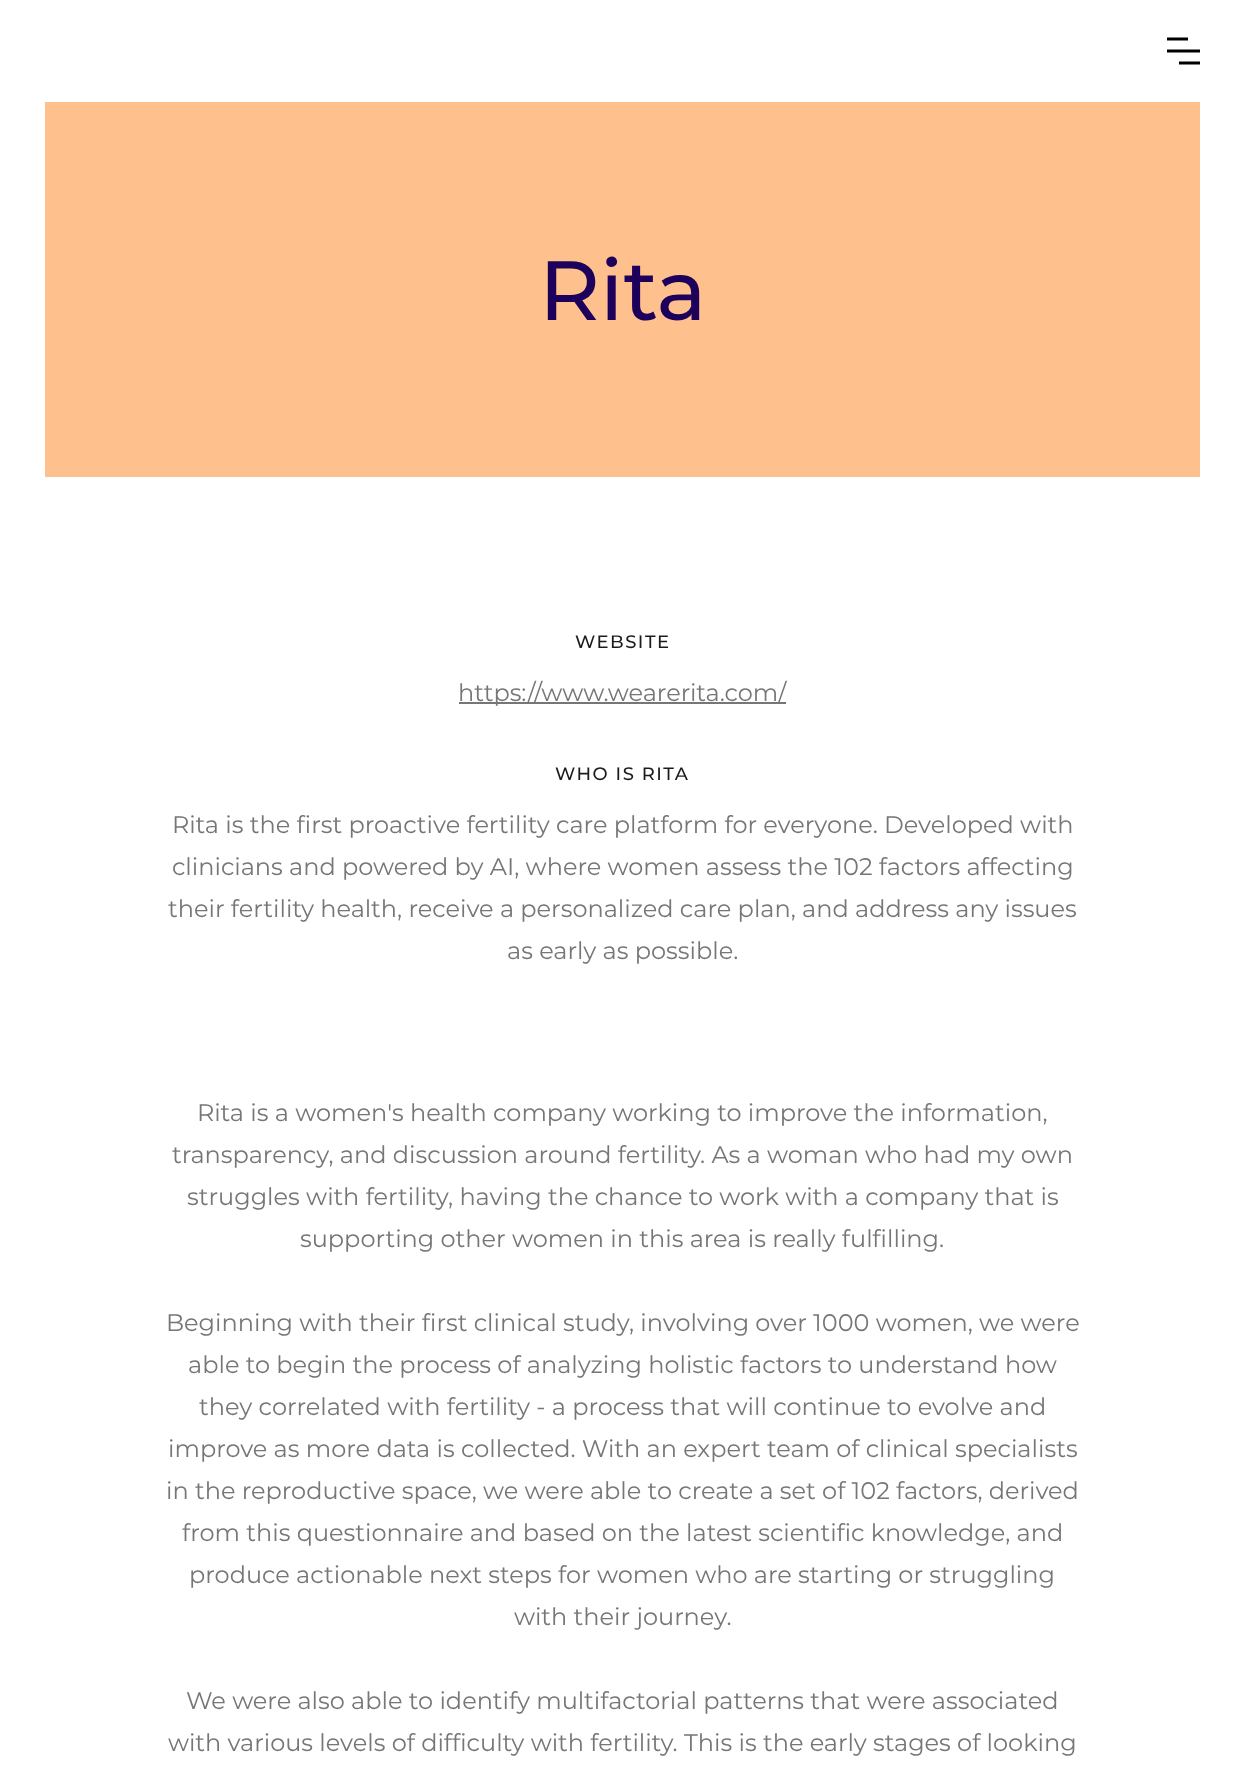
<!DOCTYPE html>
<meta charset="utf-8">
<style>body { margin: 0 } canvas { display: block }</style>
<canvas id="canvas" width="1244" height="1785"></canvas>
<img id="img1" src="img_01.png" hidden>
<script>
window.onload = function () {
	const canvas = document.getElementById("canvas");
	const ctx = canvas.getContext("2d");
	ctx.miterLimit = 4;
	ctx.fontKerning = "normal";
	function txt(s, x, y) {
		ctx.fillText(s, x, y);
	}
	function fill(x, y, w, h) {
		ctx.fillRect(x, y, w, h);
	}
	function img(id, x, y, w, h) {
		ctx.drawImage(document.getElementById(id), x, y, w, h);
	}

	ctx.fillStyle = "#FFFFFF";
	fill(0, 0, 1244, 1785);
	img("img1", 1167, 37, 33, 28);
	ctx.fillStyle = "#FEC08D";
	fill(45, 102, 1155, 375);
	ctx.fillStyle = "#767679";
	fill(459, 702, 327, 2);
	ctx.font = "500 84px Montserrat";
	ctx.fillStyle = "#1D005B";
	txt("Rita", 539, 320);
	ctx.letterSpacing = "1.5px";
	ctx.font = "500 18px Montserrat";
	ctx.fillStyle = "#1A1B1F";
	txt("WEBSITE", 575, 648);
	ctx.letterSpacing = "0px";
	ctx.font = "24px Montserrat";
	ctx.fillStyle = "#767679";
	txt("https://www.wearerita.com/", 458, 701);
	ctx.letterSpacing = "1.5px";
	ctx.font = "500 18px Montserrat";
	ctx.fillStyle = "#1A1B1F";
	txt("WHO IS RITA", 555, 780);
	ctx.letterSpacing = "0px";
	ctx.font = "24px Montserrat";
	ctx.fillStyle = "#767679";
	txt("Rita is the first proactive fertility care platform for everyone. Developed with", 172, 833);
	txt("clinicians and powered by AI, where women assess the 102 factors affecting", 172, 875);
	txt("their fertility health, receive a personalized care plan, and address any issues", 168, 917);
	txt("as early as possible.", 507, 959);
	txt("Rita is a women's health company working to improve the information,", 197, 1121);
	txt("transparency, and discussion around fertility. As a woman who had my own", 172, 1163);
	txt("struggles with fertility, having the chance to work with a company that is", 187, 1205);
	txt("supporting other women in this area is really fulfilling.", 300, 1247);
	txt("Beginning with their first clinical study, involving over 1000 women, we were", 166, 1331);
	txt("able to begin the process of analyzing holistic factors to understand how", 188, 1373);
	txt("they correlated with fertility - a process that will continue to evolve and", 199, 1415);
	txt("improve as more data is collected. With an expert team of clinical specialists", 168, 1457);
	txt("in the reproductive space, we were able to create a set of 102 factors, derived", 166, 1499);
	txt("from this questionnaire and based on the latest scientific knowledge, and", 182, 1541);
	txt("produce actionable next steps for women who are starting or struggling", 189, 1583);
	txt("with their journey.", 514, 1625);
	txt("We were also able to identify multifactorial patterns that were associated", 186, 1709);
	txt("with various levels of difficulty with fertility. This is the early stages of looking", 168, 1751);
};
</script>
